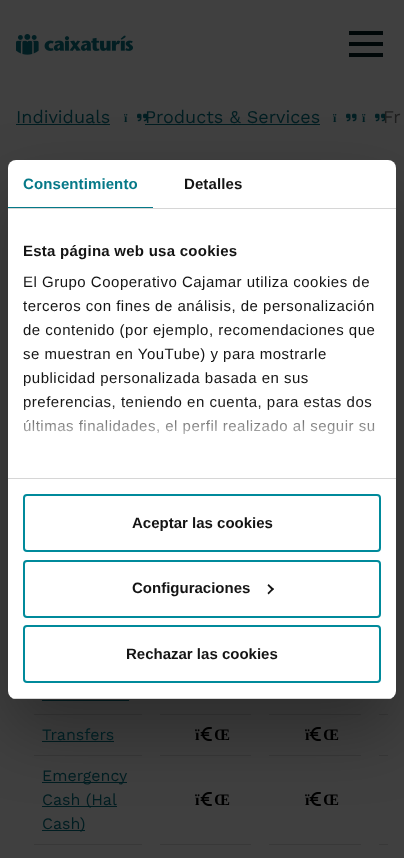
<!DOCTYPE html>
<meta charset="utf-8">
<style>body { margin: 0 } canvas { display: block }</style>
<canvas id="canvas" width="404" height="858"></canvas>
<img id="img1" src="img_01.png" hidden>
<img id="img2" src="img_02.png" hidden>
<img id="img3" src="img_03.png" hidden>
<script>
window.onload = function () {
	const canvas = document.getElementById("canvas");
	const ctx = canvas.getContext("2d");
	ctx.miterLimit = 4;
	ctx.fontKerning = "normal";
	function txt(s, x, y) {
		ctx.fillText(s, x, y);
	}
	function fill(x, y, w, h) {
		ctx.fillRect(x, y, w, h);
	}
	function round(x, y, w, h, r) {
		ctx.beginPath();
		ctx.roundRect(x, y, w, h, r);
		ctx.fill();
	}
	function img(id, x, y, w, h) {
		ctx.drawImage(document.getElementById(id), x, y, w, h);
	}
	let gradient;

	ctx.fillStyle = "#404040";
	fill(0, 0, 404, 858);
	img("img1", 16, 34, 117, 21);
	ctx.fillStyle = "#000708";
	fill(349, 31, 34, 4);
	fill(349, 42, 34, 4);
	fill(349, 53, 34, 4);
	ctx.fillStyle = "#021E22";
	fill(16, 124, 94, 1);
	img("img2", 137, 113, 11, 9);
	fill(145, 124, 175, 1);
	img("img2", 346, 113, 11, 9);
	img("img2", 375, 113, 11, 9);
	ctx.fillStyle = "#383838";
	fill(34, 714, 108, 1);
	ctx.fillStyle = "#001D21";
	fill(42, 700, 87, 1);
	ctx.fillStyle = "#383838";
	fill(160, 714, 91, 1);
	fill(269, 714, 92, 1);
	fill(379, 714, 9, 1);
	fill(34, 755, 108, 1);
	ctx.fillStyle = "#001D21";
	fill(42, 741, 72, 1);
	ctx.fillStyle = "#383838";
	fill(160, 755, 91, 1);
	img("img3", 200, 727, 12, 14);
	fill(269, 755, 92, 1);
	img("img3", 309, 727, 12, 14);
	fill(379, 755, 9, 1);
	ctx.fillStyle = "#001D21";
	fill(42, 782, 85, 1);
	fill(42, 806, 75, 1);
	fill(42, 830, 43, 1);
	img("img3", 200, 792, 12, 14);
	img("img3", 309, 792, 12, 14);
	ctx.fillStyle = "rgba(0, 0, 0, 0.3)";
	ctx.filter = "blur(34px)";
	ctx.beginPath();
	ctx.roundRect(8, 192, 388, 539, 8);
	ctx.fill();
	ctx.filter = "none";
	ctx.fillStyle = "#FFFFFF";
	round(8, 160, 388, 539, 8);
	ctx.fillStyle = "#D6D6D6";
	fill(8, 208, 388, 1);
	ctx.fillStyle = "#067988";
	fill(8, 207, 145, 1);
	ctx.fillStyle = "#D6D6D6";
	fill(8, 478, 388, 1);
	ctx.save();
	ctx.beginPath();
	ctx.roundRect(8, 160, 388, 539, 8);
	ctx.clip();
	fill(8, 698, 388, 1);
	ctx.restore();
	ctx.beginPath();
	ctx.roundRect(24, 495, 356, 56, 3);
	ctx.strokeStyle = "#008A9B";
	ctx.lineWidth = 2;
	ctx.stroke();
	ctx.beginPath();
	ctx.roundRect(24, 561, 356, 56, 3);
	ctx.stroke();
	ctx.fillStyle = "#141414";
	ctx.beginPath();
	ctx.moveTo(268.5, 584);
	ctx.lineTo(274, 589);
	ctx.lineTo(272.5, 590.5);
	ctx.lineTo(267.5, 585.5);
	ctx.closePath();
	ctx.fill();
	ctx.beginPath();
	ctx.moveTo(272.5, 588);
	ctx.lineTo(274, 589);
	ctx.lineTo(268.5, 594.5);
	ctx.lineTo(267.5, 593);
	ctx.closePath();
	ctx.fill();
	ctx.beginPath();
	ctx.roundRect(24, 626, 356, 56, 3);
	ctx.stroke();
	ctx.fillStyle = "#383838";
	fill(34, 844, 108, 1);
	fill(160, 844, 91, 1);
	fill(269, 844, 92, 1);
	fill(379, 844, 9, 1);
	ctx.font = "18px Work Sans";
	ctx.fillStyle = "#001D21";
	txt("Individuals", 16, 123);
	ctx.font = "bold 12px Liberation Serif";
	txt("ï", 124, 122);
	ctx.font = "18px Work Sans";
	txt("Products & Services", 145, 123);
	ctx.font = "bold 12px Liberation Serif";
	txt("ï", 333, 122);
	txt("ï", 362, 122);
	ctx.font = "18px Work Sans";
	ctx.fillStyle = "#1E1E1E";
	txt("Fr", 383, 123);
	ctx.letterSpacing = "0.1px";
	ctx.font = "bold 15px Liberation Sans";
	ctx.fillStyle = "#067988";
	txt("Consentimiento", 23, 189);
	ctx.fillStyle = "#141414";
	txt("Detalles", 184, 189);
	ctx.letterSpacing = "0.25px";
	txt("Esta página web usa cookies", 23, 256);
	ctx.letterSpacing = "0.5px";
	ctx.font = "15px Liberation Sans";
	txt("El Grupo Cooperativo Cajamar utiliza cookies de", 23, 287);
	txt("terceros con fines de análisis, de personalización", 23, 311);
	txt("de contenido (por ejemplo, recomendaciones que", 23, 335);
	txt("se muestran en YouTube) y para mostrarle", 23, 359);
	txt("publicidad personalizada basada en sus", 23, 383);
	txt("preferencias, teniendo en cuenta, para estas dos", 23, 407);
	txt("últimas finalidades, el perfil realizado al seguir su", 23, 431);
	gradient = ctx.createLinearGradient(196, 478, 196, 403);
	gradient.addColorStop(0, "#FFFFFF");
	gradient.addColorStop(0.5, "rgba(255, 255, 255, 0.8)");
	gradient.addColorStop(1, "rgba(255, 255, 255, 0)");
	ctx.fillStyle = gradient;
	fill(24, 404, 350, 31);
	ctx.letterSpacing = "0px";
	ctx.font = "bold 15px Liberation Sans";
	ctx.fillStyle = "#141414";
	txt("Aceptar las cookies", 132, 528);
	txt("Configuraciones", 132, 593);
	txt("Rechazar las cookies", 126, 659);
	ctx.font = "16px Work Sans";
	ctx.fillStyle = "#001D21";
	txt("Transfers", 42, 740);
	ctx.font = "bold 16px Liberation Serif";
	ctx.fillStyle = "#000000";
	txt("ï", 195, 740);
	txt("Œ", 214, 740);
	txt("ï", 305, 740);
	txt("Œ", 323, 740);
	ctx.font = "16px Work Sans";
	ctx.fillStyle = "#001D21";
	txt("Emergency", 42, 781);
	txt("Cash (Hal", 42, 805);
	txt("Cash)", 42, 829);
	ctx.font = "bold 16px Liberation Serif";
	ctx.fillStyle = "#000000";
	txt("ï", 195, 805);
	txt("Œ", 214, 805);
	txt("ï", 305, 805);
	txt("Œ", 323, 805);
};
</script>
